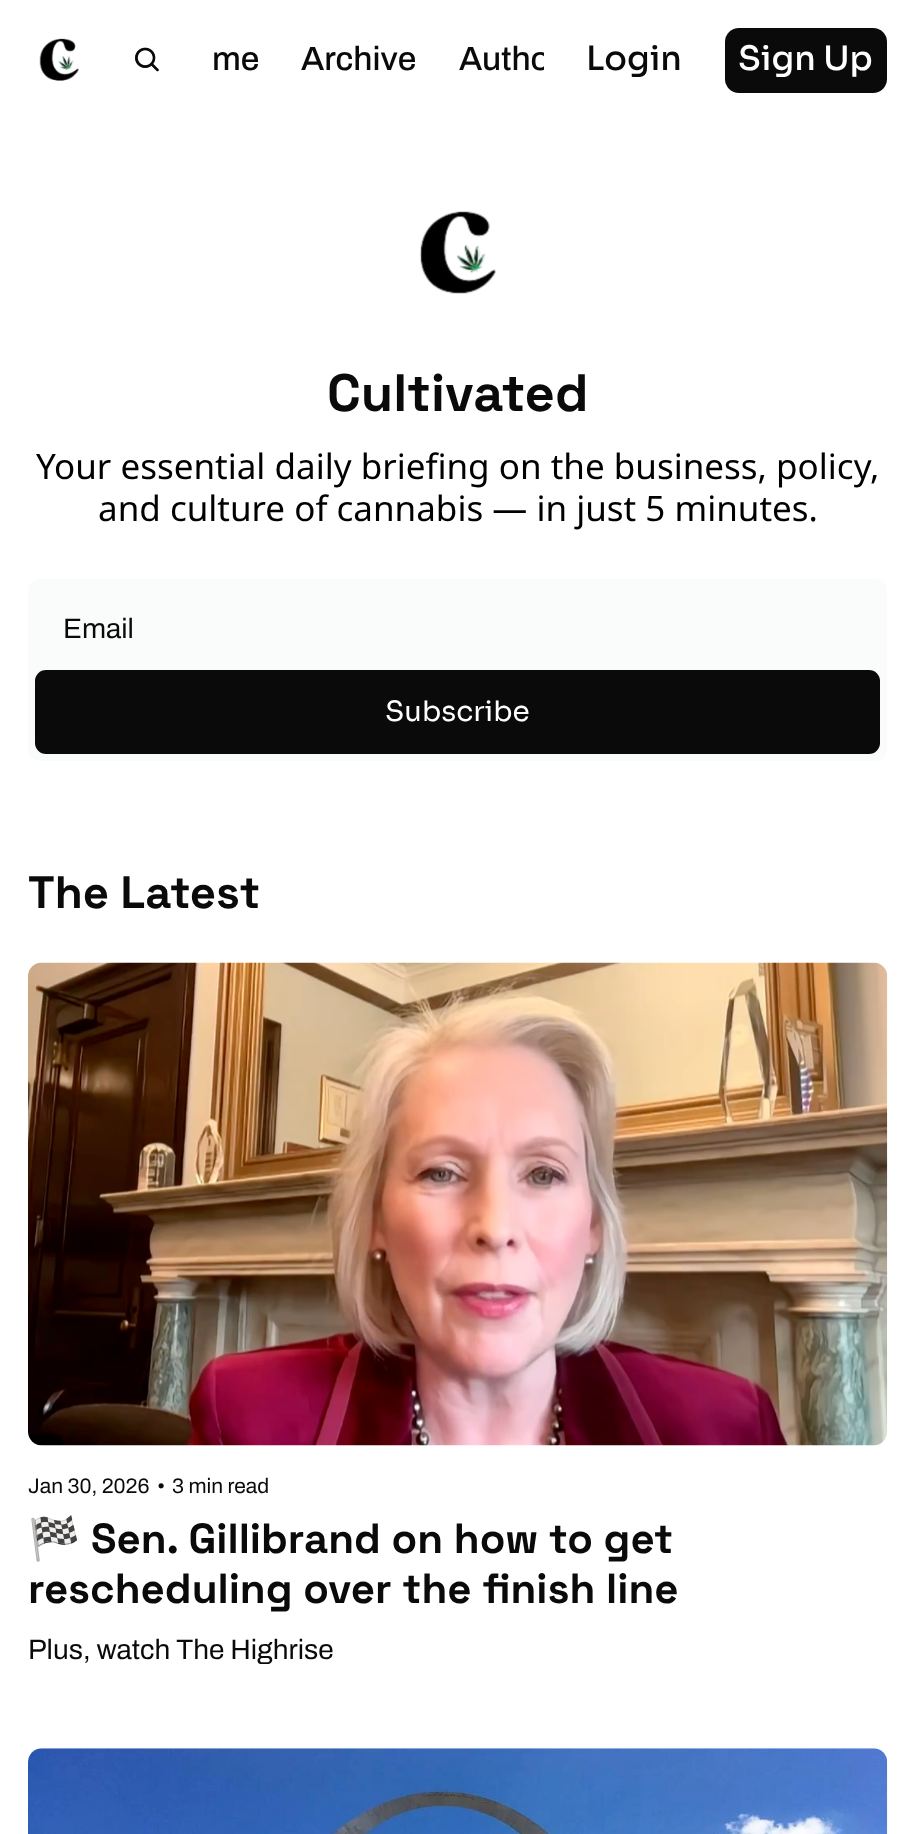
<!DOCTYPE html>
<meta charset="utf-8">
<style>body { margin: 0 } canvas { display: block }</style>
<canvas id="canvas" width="915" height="1834"></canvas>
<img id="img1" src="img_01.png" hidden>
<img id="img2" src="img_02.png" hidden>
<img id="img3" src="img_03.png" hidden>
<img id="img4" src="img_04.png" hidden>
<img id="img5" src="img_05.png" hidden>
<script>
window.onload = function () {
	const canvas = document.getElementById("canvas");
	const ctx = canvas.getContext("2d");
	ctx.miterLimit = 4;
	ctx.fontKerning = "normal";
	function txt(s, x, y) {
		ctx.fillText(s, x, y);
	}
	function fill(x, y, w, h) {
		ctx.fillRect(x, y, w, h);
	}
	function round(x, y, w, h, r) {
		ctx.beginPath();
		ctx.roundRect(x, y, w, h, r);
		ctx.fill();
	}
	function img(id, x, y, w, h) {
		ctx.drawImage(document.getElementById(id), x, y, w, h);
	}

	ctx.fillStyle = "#FFFFFF";
	fill(0, 0, 915, 1834);
	img("img1", 39, 38, 40, 43);
	img("img2", 135, 47, 24, 25);
	ctx.fillStyle = "#0B0A0A";
	round(725, 28, 162, 65, 14);
	img("img3", 419, 211, 77, 83);
	ctx.fillStyle = "#FAFBFB";
	round(28, 579, 859, 182, 12);
	ctx.fillStyle = "#0B0A0A";
	round(35, 670, 845, 84, 11);
	img("img4", 28, 962, 860, 484);
	img("img5", 28, 1748, 860, 86);
	ctx.font = "500 33.5px Archivo";
	txt("me", 212, 70);
	txt("Archive", 301, 70);
	ctx.save();
	ctx.beginPath();
	ctx.rect(203, 32, 341, 57);
	ctx.clip();
	txt("Autho", 459, 70);
	ctx.restore();
	ctx.font = "500 33.5px Sora";
	txt("Login", 586, 70);
	ctx.fillStyle = "#FFFFFF";
	txt("Sign Up", 738, 70);
	ctx.font = "bold 52.5px Space Grotesk";
	ctx.fillStyle = "#0B0A0A";
	txt("Cultivated", 327, 411);
	ctx.font = "35px Noto Sans";
	ctx.fillStyle = "#000000";
	txt("Your essential daily briefing on the business, policy,", 36, 479);
	txt("and culture of cannabis — in just 5 minutes.", 98, 521);
	ctx.font = "28px Archivo";
	ctx.fillStyle = "#0B0A0A";
	txt("Email", 63, 638);
	ctx.font = "28px Sora";
	ctx.fillStyle = "#FFFFFF";
	txt("Subscribe", 385, 721);
	ctx.font = "bold 45.5px Space Grotesk";
	ctx.fillStyle = "#0B0A0A";
	txt("The Latest", 28, 908);
	ctx.font = "21px Archivo";
	txt("Jan 30, 2026", 28, 1493);
	txt("•", 157, 1493);
	txt("3 min read", 172, 1493);
	ctx.font = "bold 42px Noto Color Emoji";
	txt("🏁", 28, 1553);
	ctx.font = "bold 42px Space Grotesk";
	txt("Sen. Gillibrand on how to get", 91, 1553);
	txt("rescheduling over the finish line", 28, 1603);
	ctx.font = "28px Archivo";
	txt("Plus, watch The Highrise", 28, 1659);
};
</script>
